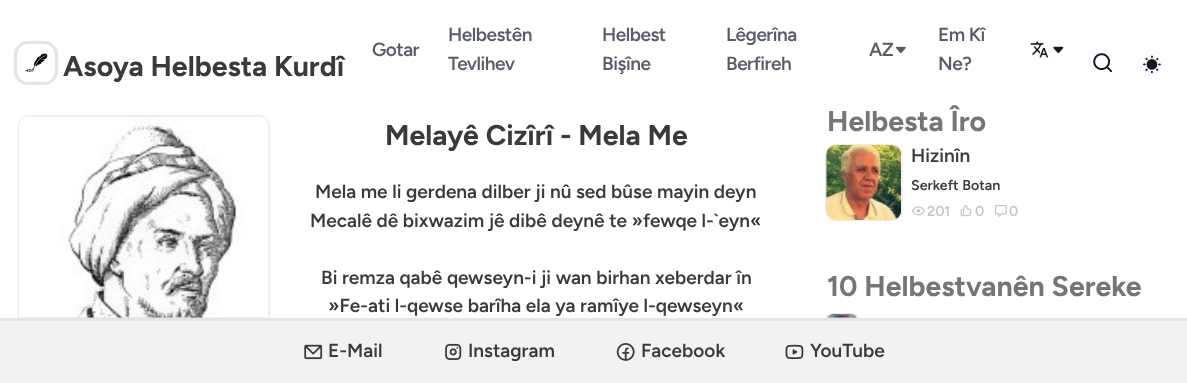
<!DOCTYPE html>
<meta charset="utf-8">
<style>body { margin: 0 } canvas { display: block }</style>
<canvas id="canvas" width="1187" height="383"></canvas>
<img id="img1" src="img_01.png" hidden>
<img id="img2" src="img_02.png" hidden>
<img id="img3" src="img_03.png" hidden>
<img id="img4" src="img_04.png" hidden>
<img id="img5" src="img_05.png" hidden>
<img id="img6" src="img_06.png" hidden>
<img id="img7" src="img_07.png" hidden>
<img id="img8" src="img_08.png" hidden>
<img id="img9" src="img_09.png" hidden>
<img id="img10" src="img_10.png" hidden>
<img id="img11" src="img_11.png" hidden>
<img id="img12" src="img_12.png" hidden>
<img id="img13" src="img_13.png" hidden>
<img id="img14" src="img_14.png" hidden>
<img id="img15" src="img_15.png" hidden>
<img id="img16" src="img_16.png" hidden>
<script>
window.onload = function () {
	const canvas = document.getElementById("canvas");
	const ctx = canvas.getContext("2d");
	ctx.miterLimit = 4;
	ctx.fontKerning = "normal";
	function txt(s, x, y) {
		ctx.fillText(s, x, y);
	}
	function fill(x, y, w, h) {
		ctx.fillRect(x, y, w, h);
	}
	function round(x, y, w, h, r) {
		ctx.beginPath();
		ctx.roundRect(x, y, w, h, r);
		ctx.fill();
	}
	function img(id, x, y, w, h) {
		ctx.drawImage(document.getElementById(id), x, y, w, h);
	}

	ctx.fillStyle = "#FFFFFF";
	fill(0, 0, 1187, 383);
	ctx.beginPath();
	ctx.roundRect(15.5, 42.5, 41, 41, 12.5);
	ctx.strokeStyle = "#E4E4E4";
	ctx.lineWidth = 3;
	ctx.stroke();
	img("img1", 25, 53, 23, 19);
	img("img2", 895, 46, 11, 7);
	img("img3", 1030, 41, 19, 17);
	img("img4", 1053, 46, 11, 7);
	img("img5", 1093, 53, 20, 20);
	img("img6", 1143, 55, 18, 19);
	ctx.fillStyle = "#E4E4E4";
	ctx.beginPath();
	ctx.roundRect(19, 116, 250, 202, [10, 10, 0, 0]);
	ctx.fill();
	img("img7", 19, 116, 250, 202);
	ctx.fillStyle = "#F2F2F2";
	fill(0, 321, 1187, 62);
	ctx.fillStyle = "#E4E4E4";
	fill(0, 318, 1187, 3);
	ctx.save();
	ctx.beginPath();
	ctx.rect(0, 85, 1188, 233);
	ctx.clip();
	ctx.beginPath();
	ctx.roundRect(18.5, 115.5, 251, 252, 10.5);
	ctx.strokeStyle = "#EBEBEB";
	ctx.lineWidth = 1;
	ctx.stroke();
	ctx.restore();
	round(826, 145, 75, 75, 10);
	img("img8", 826, 145, 76, 75);
	ctx.beginPath();
	ctx.roundRect(825.5, 144.5, 77, 76, 10.5);
	ctx.strokeStyle = "#EBEBEB";
	ctx.lineWidth = 1;
	ctx.stroke();
	img("img9", 912, 206, 13, 10);
	img("img10", 960, 205, 12, 12);
	img("img11", 995, 205, 12, 12);
	ctx.beginPath();
	ctx.roundRect(826, 314, 32, 4, [8, 8, 0, 0]);
	ctx.fill();
	img("img12", 827, 313, 30, 5);
	img("img13", 304, 344, 19, 16);
	img("img14", 445, 343, 17, 17);
	img("img15", 616, 343, 19, 18);
	img("img16", 785, 344, 19, 16);
	ctx.font = "bold 28.5px Figtree";
	ctx.fillStyle = "#3A3A3A";
	txt("Asoya Helbesta Kurdî", 63, 76);
	ctx.letterSpacing = "-0.5px";
	ctx.font = "600 19px Figtree";
	ctx.fillStyle = "#585D68";
	txt("Gotar", 372, 56);
	txt("Helbestên", 448, 41);
	txt("Tevlihev", 448, 70);
	txt("Helbest", 602, 41);
	txt("Bişîne", 602, 70);
	txt("Lêgerîna", 726, 41);
	txt("Berfireh", 726, 70);
	txt("AZ", 869, 56);
	txt("Em Kî", 938, 41);
	txt("Ne?", 938, 70);
	ctx.letterSpacing = "0px";
	ctx.font = "bold 28.5px Figtree";
	ctx.fillStyle = "#3A3A3A";
	txt("Melayê Cizîrî - Mela Me", 385, 145);
	ctx.font = "600 19px Figtree";
	txt("Mela me li gerdena dilber ji nû sed bûse mayin deyn", 315, 198);
	txt("Mecalê dê bixwazim jê dibê deynê te »fewqe l-`eyn«", 310, 227);
	txt("Bi remza qabê qewseyn-i ji wan birhan xeberdar în", 321, 284);
	txt("»Fe-ati l-qewse barîha ela ya ramîye l-qewseyn«", 328, 312);
	ctx.font = "bold 28.5px Figtree";
	ctx.fillStyle = "#757575";
	txt("Helbesta Îro", 827, 131);
	ctx.font = "600 19px Figtree";
	ctx.fillStyle = "#3A3A3A";
	txt("Hizinîn", 911, 162);
	ctx.font = "600 14.25px Figtree";
	txt("Serkeft Botan", 911, 190);
	ctx.fillStyle = "#C4C4C4";
	txt("201", 927, 216);
	txt("0", 975, 216);
	txt("0", 1009, 216);
	ctx.font = "bold 28.5px Figtree";
	ctx.fillStyle = "#757575";
	txt("10 Helbestvanên Sereke", 827, 296);
	ctx.font = "600 19px Figtree";
	ctx.fillStyle = "#3A3A3A";
	txt("E-Mail", 328, 357);
	txt("Instagram", 468, 357);
	txt("Facebook", 641, 357);
	txt("YouTube", 810, 357);
	ctx.save();
	ctx.beginPath();
	ctx.rect(0, 85, 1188, 233);
	ctx.clip();
	ctx.beginPath();
	ctx.roundRect(825.5, 313.5, 33, 32, 8.5);
	ctx.stroke();
	ctx.restore();
};
</script>
